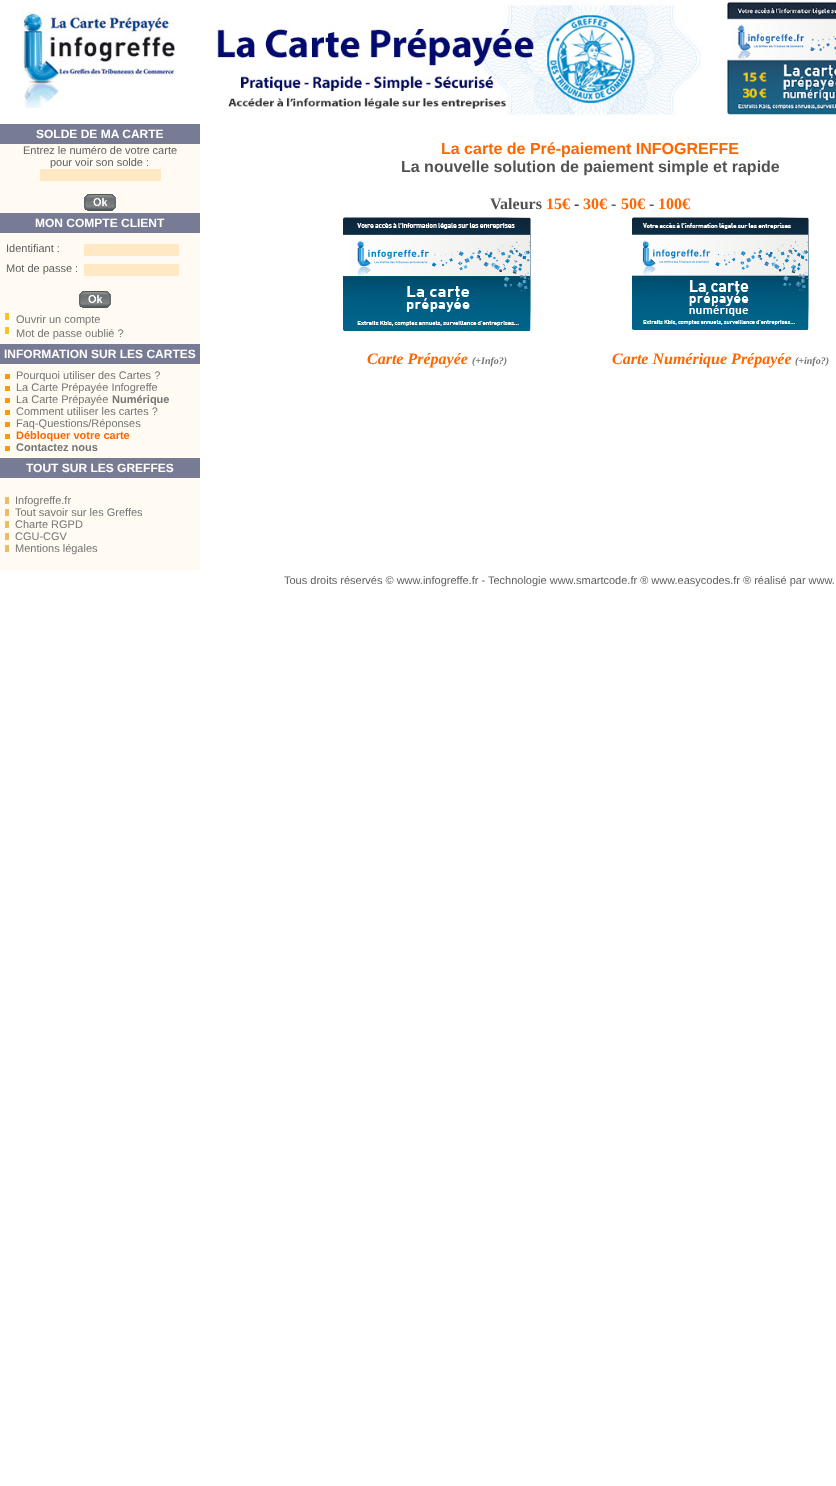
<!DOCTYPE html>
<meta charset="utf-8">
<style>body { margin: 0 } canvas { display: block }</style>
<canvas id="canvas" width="836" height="1486"></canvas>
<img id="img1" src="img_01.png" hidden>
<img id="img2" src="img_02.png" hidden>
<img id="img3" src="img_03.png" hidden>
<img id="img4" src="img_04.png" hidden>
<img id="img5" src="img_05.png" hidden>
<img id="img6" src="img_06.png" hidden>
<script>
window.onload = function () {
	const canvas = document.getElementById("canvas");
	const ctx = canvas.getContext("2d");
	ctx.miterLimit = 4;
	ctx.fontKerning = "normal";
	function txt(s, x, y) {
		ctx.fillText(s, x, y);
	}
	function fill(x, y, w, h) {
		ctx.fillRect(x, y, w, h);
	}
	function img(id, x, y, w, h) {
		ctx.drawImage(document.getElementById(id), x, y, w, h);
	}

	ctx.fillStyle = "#FFFFFF";
	fill(0, 0, 836, 1486);
	img("img1", 22, 13, 155, 95);
	img("img2", 215, 0, 621, 116);
	ctx.fillStyle = "#FFFAF2";
	fill(0, 144, 200, 426);
	ctx.fillStyle = "#777B94";
	fill(0, 124, 200, 20);
	img("img3", 84, 194, 32, 17);
	fill(0, 213, 200, 20);
	ctx.fillStyle = "#FFE9C4";
	fill(84, 244, 95, 12);
	fill(84, 264, 95, 12);
	img("img3", 79, 291, 32, 17);
	img("img4", 5, 311, 11, 12);
	img("img4", 5, 325, 11, 12);
	ctx.fillStyle = "#777B94";
	fill(0, 344, 200, 20);
	ctx.fillStyle = "#FC9904";
	fill(5, 374, 5, 5);
	fill(5, 386, 5, 5);
	fill(5, 398, 5, 5);
	fill(5, 410, 5, 5);
	fill(5, 422, 5, 5);
	fill(5, 434, 5, 5);
	fill(5, 446, 5, 5);
	ctx.fillStyle = "#777B94";
	fill(0, 458, 200, 20);
	ctx.fillStyle = "#ECBC64";
	fill(5, 497, 4, 7);
	fill(5, 509, 4, 7);
	fill(5, 521, 4, 7);
	fill(5, 533, 4, 7);
	fill(5, 545, 4, 7);
	img("img5", 343, 217, 188, 114);
	img("img6", 632, 217, 177, 113);
	ctx.font = "bold 12px Liberation Sans";
	ctx.fillStyle = "#FFFFFF";
	txt("SOLDE DE MA CARTE", 36, 138);
	ctx.font = "11px Liberation Sans";
	ctx.fillStyle = "#606060";
	txt("Entrez le numéro de votre carte", 23, 154);
	txt("pour voir son solde :", 50, 166);
	ctx.fillStyle = "#FFE9C4";
	ctx.beginPath();
	ctx.rect(39.5, 168.5, 122, 13);
	ctx.fill();
	ctx.strokeStyle = "#FFFAF2";
	ctx.stroke();
	ctx.font = "bold 12px Liberation Sans";
	ctx.fillStyle = "#FFFFFF";
	txt("MON COMPTE CLIENT", 35, 227);
	ctx.font = "11px Liberation Sans";
	ctx.fillStyle = "#606060";
	txt("Identifiant :", 6, 252);
	txt("Mot de passe :", 6, 272);
	ctx.fillStyle = "#747474";
	txt("Ouvrir un compte", 16, 323);
	txt("Mot de passe oublié ?", 16, 337);
	ctx.font = "bold 12px Liberation Sans";
	ctx.fillStyle = "#FFFFFF";
	txt("INFORMATION SUR LES CARTES", 4, 358);
	ctx.font = "11px Liberation Sans";
	ctx.fillStyle = "#747474";
	txt("Pourquoi utiliser des Cartes ?", 16, 379);
	txt("La Carte Prépayée Infogreffe", 16, 391);
	txt("La Carte Prépayée", 16, 403);
	ctx.font = "bold 11px Liberation Sans";
	txt("Numérique", 112, 403);
	ctx.font = "11px Liberation Sans";
	txt("Comment utiliser les cartes ?", 16, 415);
	txt("Faq-Questions/Réponses", 16, 427);
	ctx.font = "bold 11px Liberation Sans";
	ctx.fillStyle = "#FF6600";
	txt("Débloquer votre carte", 16, 439);
	ctx.fillStyle = "#747474";
	txt("Contactez nous", 16, 451);
	ctx.font = "bold 12px Liberation Sans";
	ctx.fillStyle = "#FFFFFF";
	txt("TOUT SUR LES GREFFES", 26, 472);
	ctx.font = "11px Liberation Sans";
	ctx.fillStyle = "#747474";
	txt("Infogreffe.fr", 15, 504);
	txt("Tout savoir sur les Greffes", 15, 516);
	txt("Charte RGPD", 15, 528);
	txt("CGU-CGV", 15, 540);
	txt("Mentions légales", 15, 552);
	ctx.font = "bold 16px Liberation Sans";
	ctx.fillStyle = "#FF6600";
	txt("La carte de Pré-paiement INFOGREFFE", 441, 154);
	ctx.fillStyle = "#525252";
	txt("La nouvelle solution de paiement simple et rapide", 401, 172);
	ctx.font = "bold 16px Liberation Serif";
	txt("Valeurs", 490, 209);
	ctx.fillStyle = "#FF6600";
	txt("15€", 546, 209);
	ctx.fillStyle = "#333333";
	txt("-", 574, 209);
	ctx.fillStyle = "#FF6600";
	txt("30€", 583, 209);
	ctx.fillStyle = "#525252";
	txt("-", 611, 209);
	ctx.fillStyle = "#FF6600";
	txt("50€", 621, 209);
	ctx.fillStyle = "#525252";
	txt("-", 649, 209);
	ctx.fillStyle = "#FF6600";
	txt("100€", 658, 209);
	ctx.font = "italic bold 16px Liberation Serif";
	txt("Carte Prépayée", 367, 364);
	ctx.font = "italic bold 10px Liberation Serif";
	ctx.fillStyle = "#747474";
	txt("(+Info?)", 472, 364);
	ctx.font = "italic bold 16px Liberation Serif";
	ctx.fillStyle = "#FF6600";
	txt("Carte Numérique Prépayée", 612, 364);
	ctx.font = "italic bold 10px Liberation Serif";
	ctx.fillStyle = "#747474";
	txt("(+info?)", 795, 364);
	ctx.font = "11px Liberation Sans";
	ctx.fillStyle = "#606060";
	txt("Tous droits réservés © www.infogreffe.fr - Technologie www.smartcode.fr ® www.easycodes.fr ® réalisé par www.", 284, 584);
};
</script>
